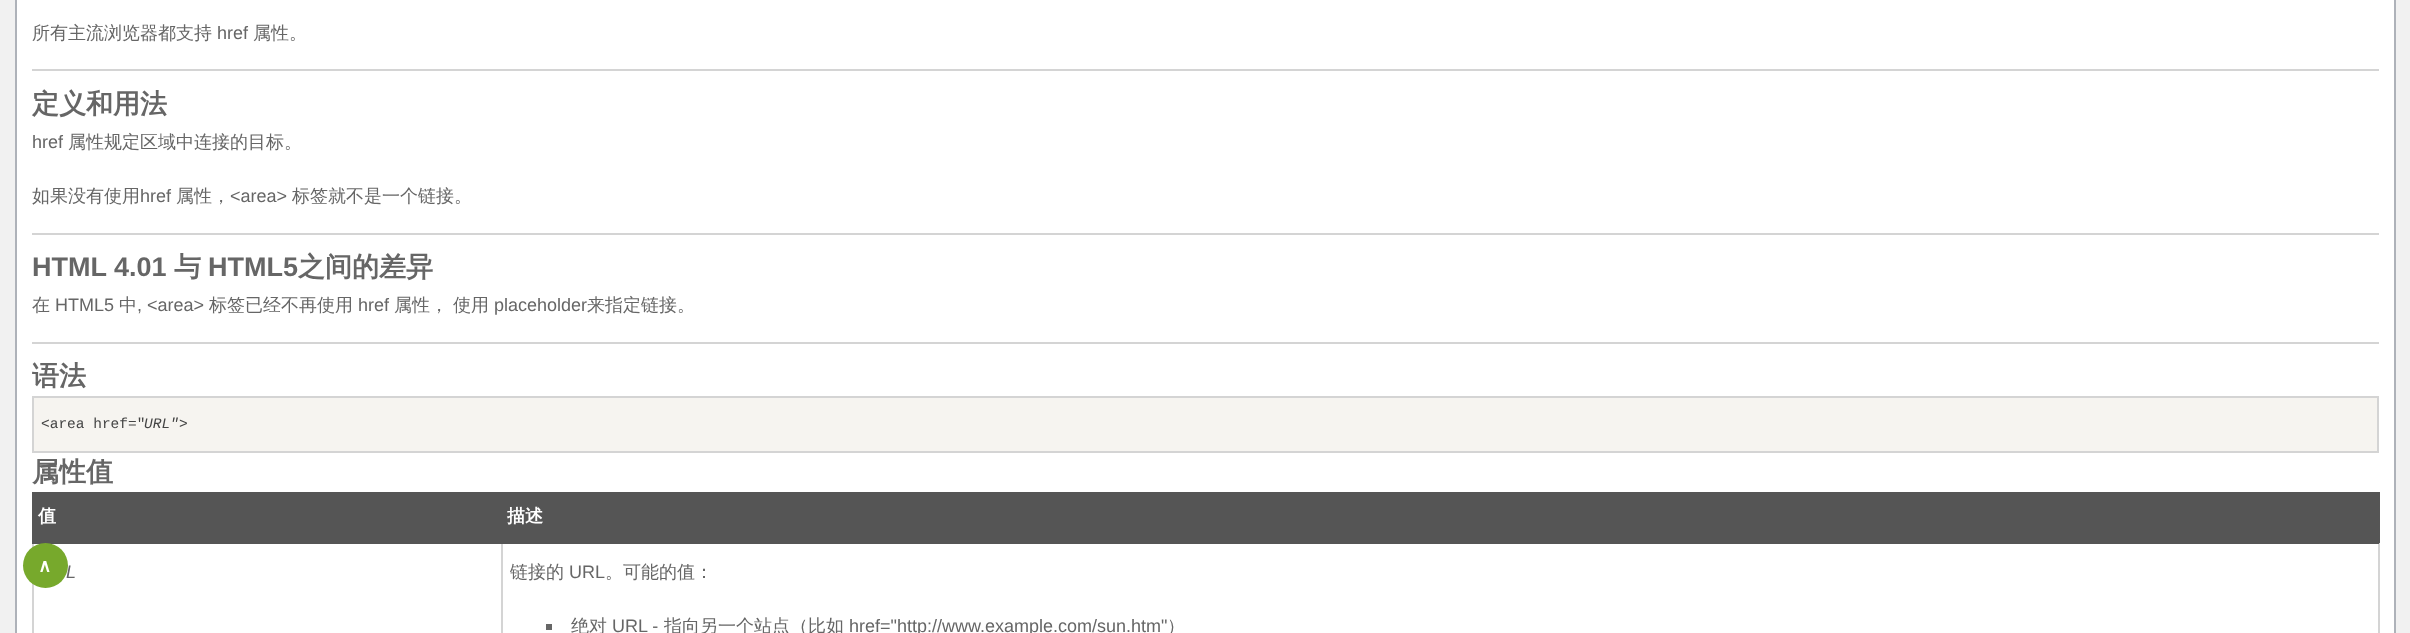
<!DOCTYPE html>
<meta charset="utf-8">
<style>body { margin: 0 } canvas { display: block }</style>
<canvas id="canvas" width="2410" height="633"></canvas>
<script>
window.onload = function () {
	const canvas = document.getElementById("canvas");
	const ctx = canvas.getContext("2d");
	ctx.miterLimit = 4;
	ctx.fontKerning = "normal";
	function txt(s, x, y) {
		ctx.fillText(s, x, y);
	}
	function fill(x, y, w, h) {
		ctx.fillRect(x, y, w, h);
	}

	ctx.fillStyle = "#F1F1F1";
	fill(0, 0, 2410, 633);
	ctx.fillStyle = "#FFFFFF";
	ctx.beginPath();
	ctx.rect(16, -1, 2379, 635);
	ctx.fill();
	ctx.strokeStyle = "#AEB2B9";
	ctx.lineWidth = 2;
	ctx.stroke();
	ctx.fillStyle = "#D4D4D4";
	fill(32, 69, 2347, 2);
	fill(32, 233, 2347, 2);
	fill(32, 342, 2347, 2);
	ctx.fillStyle = "#F6F4F0";
	ctx.beginPath();
	ctx.rect(33, 397, 2345, 55);
	ctx.fill();
	ctx.strokeStyle = "#D4D4D4";
	ctx.stroke();
	ctx.fillStyle = "#555555";
	fill(34, 494, 2344, 48);
	fill(32, 492, 2347, 2);
	ctx.fillStyle = "#D4D4D4";
	fill(2378, 542, 2, 91);
	ctx.fillStyle = "#555555";
	fill(2378, 492, 2, 51);
	ctx.fillStyle = "#D4D4D4";
	fill(32, 542, 2, 91);
	fill(501, 542, 2, 91);
	ctx.fillStyle = "#555555";
	fill(32, 542, 2347, 2);
	fill(32, 492, 2, 51);
	ctx.fillStyle = "#666666";
	fill(546, 624, 6, 6);
	ctx.font = "500 18px WenQuanYi Zen Hei";
	txt("所有主流浏览器都支持", 32, 39);
	ctx.font = "18px Liberation Sans";
	txt("href", 217, 39);
	ctx.font = "500 18px WenQuanYi Zen Hei";
	txt("属性。", 253, 39);
	ctx.font = "bold 27px WenQuanYi Zen Hei";
	txt("定义和用法", 32, 113);
	ctx.font = "18px Liberation Sans";
	txt("href", 32, 148);
	ctx.font = "500 18px WenQuanYi Zen Hei";
	txt("属性规定区域中连接的目标。", 68, 148);
	txt("如果没有使用", 32, 202);
	ctx.font = "18px Liberation Sans";
	txt("href", 140, 202);
	ctx.font = "500 18px WenQuanYi Zen Hei";
	txt("属性，", 176, 202);
	ctx.font = "18px Liberation Sans";
	txt("<area>", 230, 202);
	ctx.font = "500 18px WenQuanYi Zen Hei";
	txt("标签就不是一个链接。", 292, 202);
	ctx.font = "bold 27px Liberation Sans";
	txt("HTML 4.01", 32, 276);
	ctx.font = "bold 27px WenQuanYi Zen Hei";
	txt("与", 174, 276);
	ctx.font = "bold 27px Liberation Sans";
	txt("HTML5", 208, 276);
	ctx.font = "bold 27px WenQuanYi Zen Hei";
	txt("之间的差异", 298, 276);
	ctx.font = "500 18px WenQuanYi Zen Hei";
	txt("在", 32, 311);
	ctx.font = "18px Liberation Sans";
	txt("HTML5", 55, 311);
	ctx.font = "500 18px WenQuanYi Zen Hei";
	txt("中", 119, 311);
	ctx.font = "18px Liberation Sans";
	txt(", <area>", 137, 311);
	ctx.font = "500 18px WenQuanYi Zen Hei";
	txt("标签已经不再使用", 209, 311);
	ctx.font = "18px Liberation Sans";
	txt("href", 358, 311);
	ctx.font = "500 18px WenQuanYi Zen Hei";
	txt("属性，", 394, 311);
	txt("使用", 453, 311);
	ctx.font = "18px Liberation Sans";
	txt("placeholder", 494, 311);
	ctx.font = "500 18px WenQuanYi Zen Hei";
	txt("来指定链接。", 587, 311);
	ctx.font = "bold 27px WenQuanYi Zen Hei";
	txt("语法", 32, 385);
	ctx.font = "14.5px Liberation Mono";
	ctx.fillStyle = "#444444";
	txt("<area href=\"", 41, 428);
	ctx.font = "italic 14.5px Liberation Mono";
	txt("URL\"", 144, 428);
	ctx.font = "14.5px Liberation Mono";
	txt(">", 179, 428);
	ctx.font = "bold 27px WenQuanYi Zen Hei";
	ctx.fillStyle = "#666666";
	txt("属性值", 32, 481);
	ctx.font = "bold 18px WenQuanYi Zen Hei";
	ctx.fillStyle = "#FFFFFF";
	txt("值", 38, 522);
	txt("描述", 507, 522);
	ctx.font = "italic 18px Liberation Sans";
	ctx.fillStyle = "#666666";
	txt("L", 66, 578);
	ctx.font = "500 18px WenQuanYi Zen Hei";
	txt("链接的", 510, 578);
	ctx.font = "18px Liberation Sans";
	txt("URL", 569, 578);
	ctx.font = "500 18px WenQuanYi Zen Hei";
	txt("。可能的值：", 605, 578);
	txt("绝对", 571, 632);
	ctx.font = "18px Liberation Sans";
	txt("URL -", 612, 632);
	ctx.font = "500 18px WenQuanYi Zen Hei";
	txt("指向另一个站点（比如", 664, 632);
	ctx.font = "18px Liberation Sans";
	txt("href=\"http://www.example.com/sun.htm\"", 849, 632);
	ctx.font = "500 18px WenQuanYi Zen Hei";
	txt("）", 1167, 632);
	ctx.fillStyle = "#77A92C";
	ctx.beginPath();
	ctx.arc(45.5, 565.5, 22.5, 0, Math.PI * 2);
	ctx.fill();
	ctx.font = "bold 18px DejaVu Sans";
	ctx.fillStyle = "#FFFFFF";
	txt("∧", 38, 572);
};
</script>
